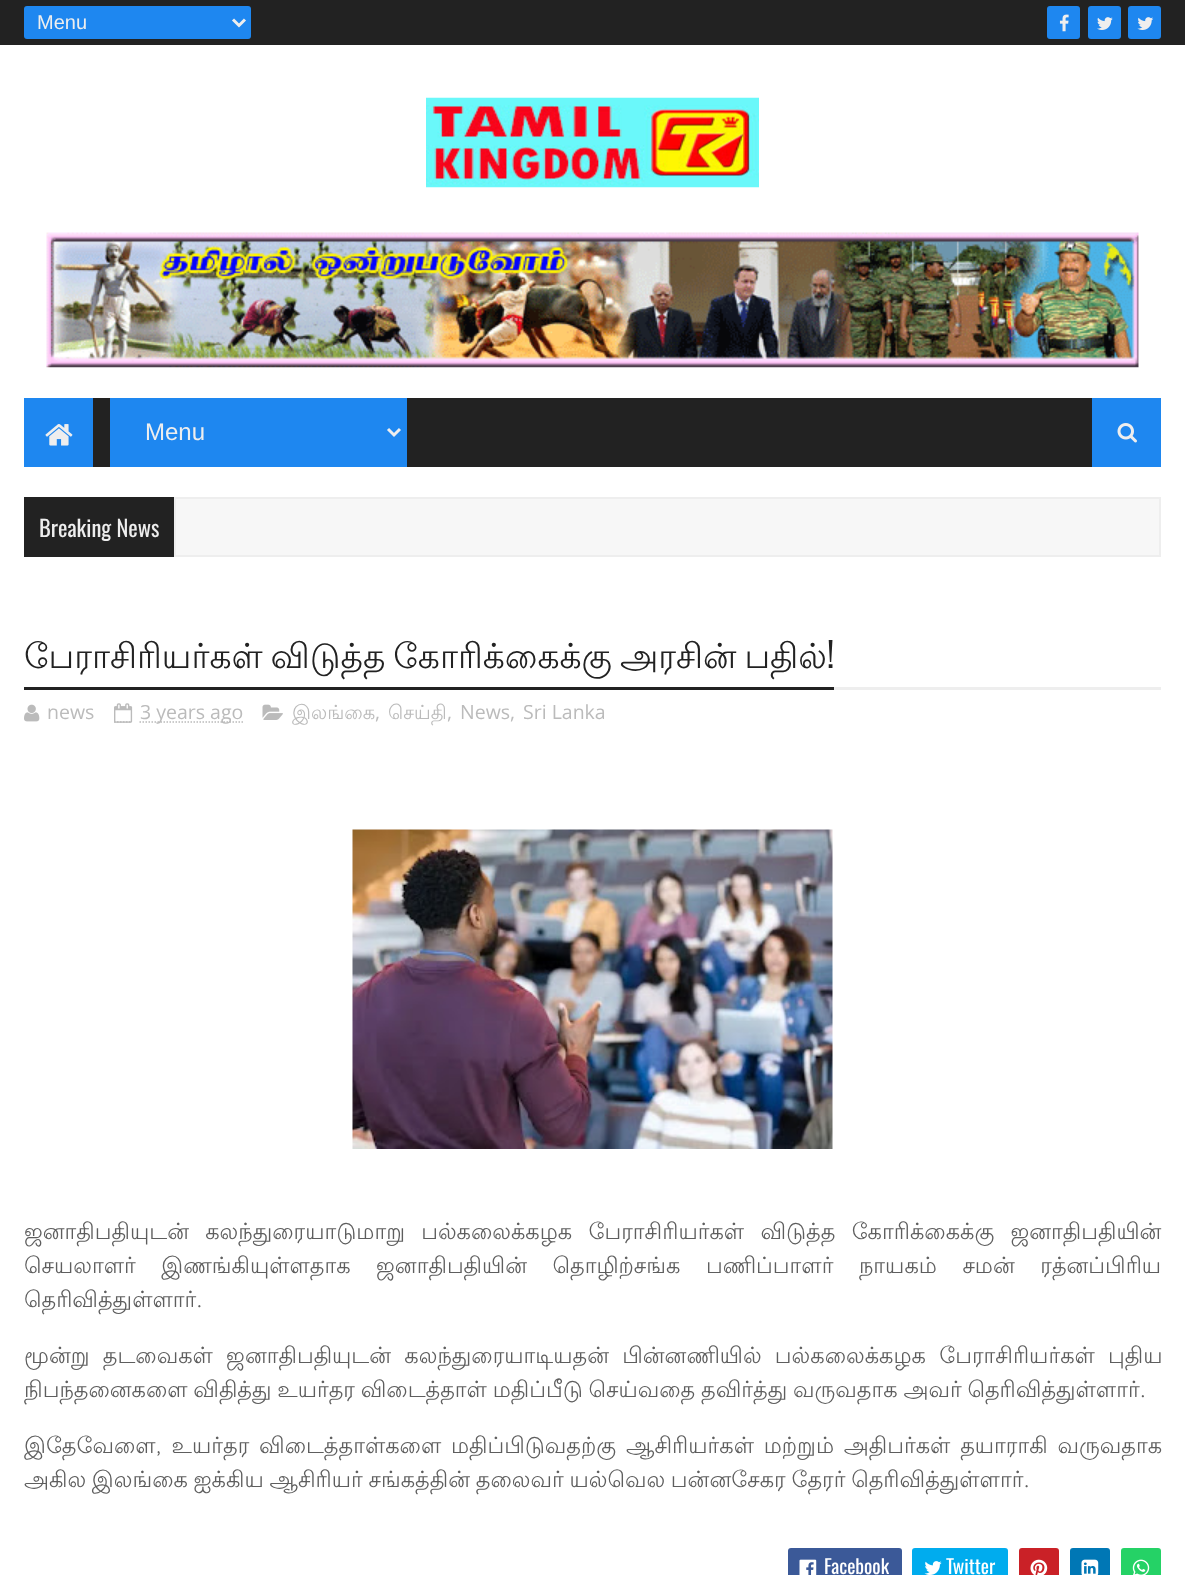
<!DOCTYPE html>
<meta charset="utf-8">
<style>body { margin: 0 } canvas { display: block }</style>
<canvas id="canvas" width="1185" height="1575"></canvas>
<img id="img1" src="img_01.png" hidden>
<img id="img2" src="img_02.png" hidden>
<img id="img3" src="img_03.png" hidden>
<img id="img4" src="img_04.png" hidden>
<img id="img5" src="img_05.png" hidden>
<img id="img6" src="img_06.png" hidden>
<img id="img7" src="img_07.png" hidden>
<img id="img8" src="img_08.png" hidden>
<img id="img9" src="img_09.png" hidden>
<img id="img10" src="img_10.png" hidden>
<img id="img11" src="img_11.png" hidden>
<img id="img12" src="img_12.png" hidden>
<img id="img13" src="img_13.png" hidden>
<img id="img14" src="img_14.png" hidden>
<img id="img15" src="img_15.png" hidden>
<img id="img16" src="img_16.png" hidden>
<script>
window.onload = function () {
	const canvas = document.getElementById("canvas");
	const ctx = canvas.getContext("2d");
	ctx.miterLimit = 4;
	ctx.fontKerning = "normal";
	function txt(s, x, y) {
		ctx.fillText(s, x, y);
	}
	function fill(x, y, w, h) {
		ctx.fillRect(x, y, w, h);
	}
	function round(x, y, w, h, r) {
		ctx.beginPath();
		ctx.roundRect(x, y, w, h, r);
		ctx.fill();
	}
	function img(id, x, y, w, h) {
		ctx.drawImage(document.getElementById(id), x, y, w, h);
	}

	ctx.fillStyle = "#FFFFFF";
	fill(0, 0, 1185, 1575);
	ctx.fillStyle = "#222222";
	fill(0, 0, 1185, 45);
	ctx.fillStyle = "#1E87F0";
	round(24, 6, 227, 33, 3);
	ctx.beginPath();
	ctx.moveTo(233, 19.5);
	ctx.lineTo(239, 25.5);
	ctx.lineTo(245, 19.5);
	ctx.strokeStyle = "#EEEEEE";
	ctx.lineWidth = 3;
	ctx.stroke();
	round(1047, 6, 33, 33, 3);
	img("img1", 1059, 14, 10, 18);
	round(1088, 6, 33, 33, 3);
	img("img2", 1097, 17, 16, 13);
	round(1128, 6, 33, 33, 3);
	img("img3", 1137, 17, 17, 13);
	img("img4", 426, 97, 333, 91);
	img("img5", 46, 232, 1093, 136);
	ctx.fillStyle = "#222222";
	fill(93, 398, 999, 69);
	ctx.fillStyle = "#1E87F0";
	fill(24, 398, 69, 69);
	img("img6", 45, 424, 28, 22);
	fill(110, 398, 297, 69);
	ctx.beginPath();
	ctx.moveTo(388, 429);
	ctx.lineTo(394, 435);
	ctx.lineTo(400, 429);
	ctx.stroke();
	fill(1092, 398, 69, 69);
	img("img7", 1117, 423, 20, 20);
	ctx.fillStyle = "#222222";
	fill(24, 497, 150, 60);
	ctx.fillStyle = "#F7F7F7";
	ctx.beginPath();
	ctx.rect(175, 498, 985, 58);
	ctx.fill();
	ctx.lineWidth = 2;
	ctx.stroke();
	ctx.fillStyle = "#EEEEEE";
	fill(834, 687, 327, 3);
	ctx.fillStyle = "#222222";
	fill(24, 687, 810, 3);
	img("img8", 24, 704, 16, 18);
	ctx.beginPath();
	ctx.moveTo(114, 722);
	ctx.lineTo(132, 722);
	ctx.strokeStyle = "#BBBBBB";
	ctx.lineWidth = 1.5;
	ctx.setLineDash([1.5, 1.5]);
	ctx.stroke();
	img("img9", 114, 703, 19, 20);
	ctx.beginPath();
	ctx.moveTo(139.5, 722);
	ctx.lineTo(243, 722);
	ctx.stroke();
	img("img10", 262, 704, 21, 16);
	img("img11", 352, 829, 481, 320);
	ctx.fillStyle = "#3B5998";
	round(788, 1548, 114, 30, 3);
	img("img12", 799, 1559, 18, 16);
	ctx.fillStyle = "#00ACEE";
	round(912, 1548, 96, 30, 3);
	img("img13", 924, 1561, 18, 14);
	ctx.fillStyle = "#CA2127";
	round(1019, 1548, 40, 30, 3);
	img("img14", 1030, 1559, 18, 16);
	ctx.fillStyle = "#0077B5";
	round(1070, 1548, 40, 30, 3);
	img("img15", 1081, 1559, 18, 16);
	ctx.fillStyle = "#25D266";
	round(1121, 1548, 40, 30, 3);
	img("img16", 1132, 1559, 18, 16);
	ctx.font = "20px Liberation Sans";
	ctx.fillStyle = "#EEEEEE";
	txt("Menu", 37, 29);
	ctx.font = "24px Liberation Sans";
	txt("Menu", 145, 440);
	ctx.font = "22.5px Oswald";
	txt("Breaking News", 39, 537);
	ctx.wordSpacing = "-2.5px";
	ctx.font = "34.5px Lohit Tamil";
	ctx.fillStyle = "#222222";
	txt("பேராசிரியர்கள் விடுத்த கோரிக்கைக்கு அரசின் பதில்", 24, 668);
	ctx.wordSpacing = "0px";
	ctx.font = "34.5px Oswald";
	txt("!", 827, 668);
	ctx.font = "19.5px Open Sans";
	ctx.fillStyle = "#BBBBBB";
	txt("news", 47, 719);
	txt("3 years ago", 140, 719);
	ctx.font = "19.5px Lohit Tamil";
	txt("இலங்கை", 292, 719);
	ctx.font = "19.5px Open Sans";
	txt(",", 375, 719);
	ctx.font = "19.5px Lohit Tamil";
	txt("செய்தி", 388, 719);
	ctx.font = "19.5px Open Sans";
	txt(",", 447, 719);
	txt("News", 460, 719);
	txt(",", 510, 719);
	txt("Sri Lanka", 523, 719);
	ctx.wordSpacing = "9.5px";
	ctx.font = "22.5px Lohit Tamil";
	ctx.fillStyle = "#5E5E5E";
	txt("ஜனாதிபதியுடன் கலந்துரையாடுமாறு பல்கலைக்கழக பேராசிரியர்கள் விடுத்த கோரிக்கைக்கு ஜனாதிபதியின்", 24, 1239);
	ctx.wordSpacing = "18.75px";
	txt("செயலாளர் இணங்கியுள்ளதாக ஜனாதிபதியின் தொழிற்சங்க பணிப்பாளர் நாயகம் சமன் ரத்னப்பிரிய", 24, 1273);
	ctx.wordSpacing = "0px";
	txt("தெரிவித்துள்ளார்.", 24, 1307);
	ctx.wordSpacing = "6.5px";
	txt("மூன்று தடவைகள் ஜனாதிபதியுடன் கலந்துரையாடியதன் பின்னணியில் பல்கலைக்கழக பேராசிரியர்கள் புதிய", 24, 1363);
	ctx.wordSpacing = "-1px";
	txt("நிபந்தனைகளை விதித்து உயர்தர விடைத்தாள் மதிப்பீடு செய்வதை தவிர்த்து வருவதாக அவர் தெரிவித்துள்ளார்.", 24, 1397);
	ctx.wordSpacing = "3px";
	txt("இதேவேளை, உயர்தர விடைத்தாள்களை மதிப்பிடுவதற்கு ஆசிரியர்கள் மற்றும் அதிபர்கள் தயாராகி வருவதாக", 24, 1453);
	ctx.wordSpacing = "-1px";
	txt("அகில இலங்கை ஐக்கிய ஆசிரியர் சங்கத்தின் தலைவர் யல்வெல பன்னசேகர தேரர் தெரிவித்துள்ளார்.", 24, 1487);
	ctx.wordSpacing = "0px";
	ctx.font = "19.5px Oswald";
	ctx.fillStyle = "#FFFFFF";
	txt("Facebook", 824, 1574);
	txt("Twitter", 946, 1574);
};
</script>
